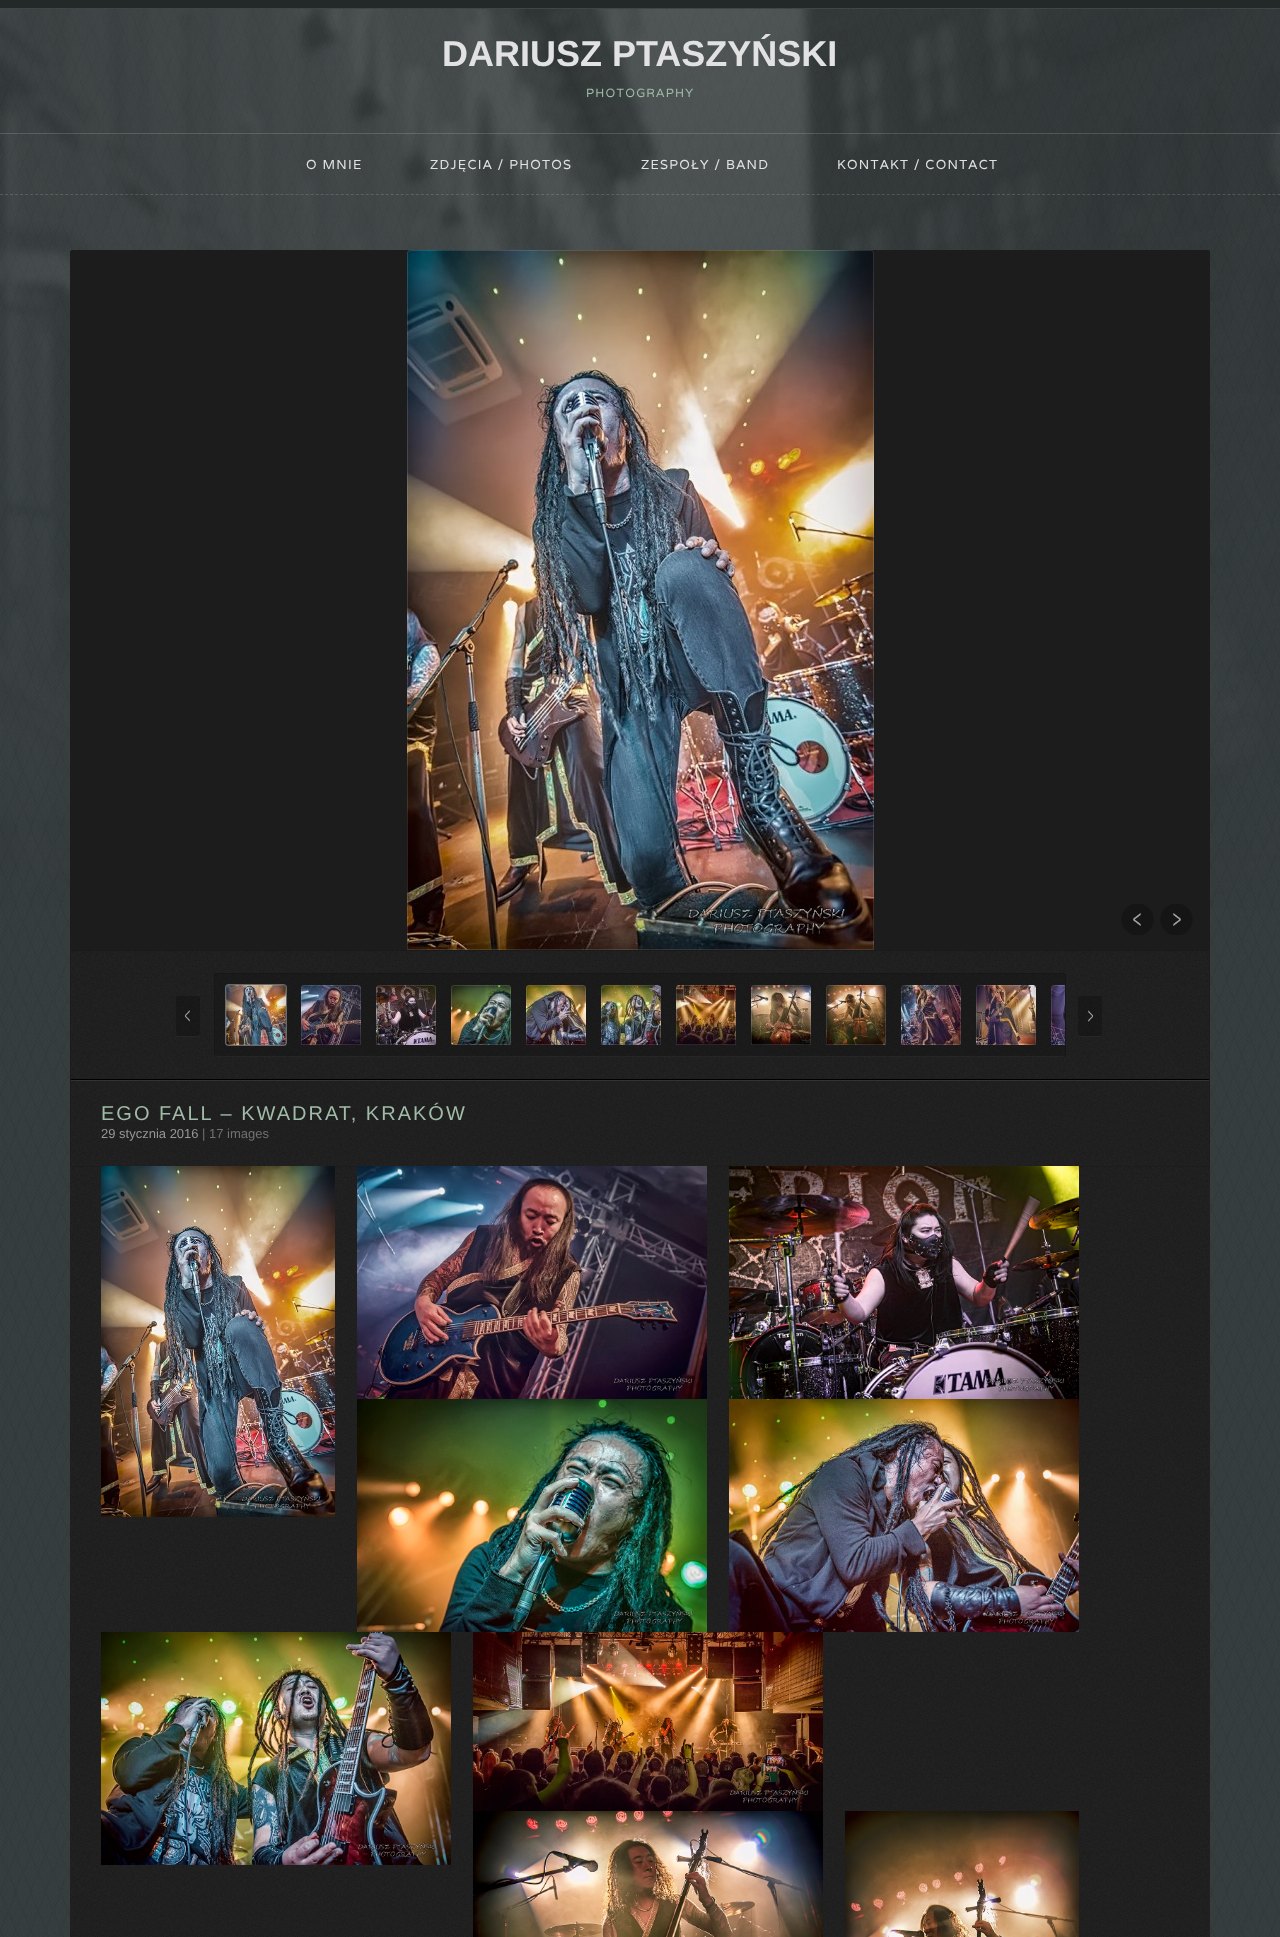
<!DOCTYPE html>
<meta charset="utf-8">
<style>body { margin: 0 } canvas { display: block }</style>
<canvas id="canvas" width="1280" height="1937"></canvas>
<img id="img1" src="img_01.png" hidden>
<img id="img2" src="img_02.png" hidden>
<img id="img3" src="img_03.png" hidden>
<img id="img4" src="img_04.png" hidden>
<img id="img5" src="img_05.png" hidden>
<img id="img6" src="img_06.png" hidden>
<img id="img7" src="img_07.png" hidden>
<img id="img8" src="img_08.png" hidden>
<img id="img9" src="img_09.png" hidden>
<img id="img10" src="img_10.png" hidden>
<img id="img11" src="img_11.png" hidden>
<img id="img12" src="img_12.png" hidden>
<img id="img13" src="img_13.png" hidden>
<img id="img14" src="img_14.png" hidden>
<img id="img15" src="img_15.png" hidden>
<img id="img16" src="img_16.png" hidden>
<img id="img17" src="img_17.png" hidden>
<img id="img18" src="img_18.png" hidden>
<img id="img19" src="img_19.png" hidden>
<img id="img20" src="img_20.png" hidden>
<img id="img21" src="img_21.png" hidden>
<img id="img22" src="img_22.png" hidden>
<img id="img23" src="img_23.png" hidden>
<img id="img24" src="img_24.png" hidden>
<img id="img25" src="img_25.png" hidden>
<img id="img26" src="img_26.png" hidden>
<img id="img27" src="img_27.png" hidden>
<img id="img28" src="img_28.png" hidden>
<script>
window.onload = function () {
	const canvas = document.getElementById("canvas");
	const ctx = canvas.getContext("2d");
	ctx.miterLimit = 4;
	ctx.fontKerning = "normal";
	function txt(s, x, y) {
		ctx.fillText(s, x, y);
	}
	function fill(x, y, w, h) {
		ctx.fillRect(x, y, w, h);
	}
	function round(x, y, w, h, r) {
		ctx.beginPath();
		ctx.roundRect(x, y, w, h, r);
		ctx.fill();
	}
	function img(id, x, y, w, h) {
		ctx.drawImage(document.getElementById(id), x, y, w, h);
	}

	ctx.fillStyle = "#232828";
	fill(0, 0, 1280, 1937);
	ctx.fillStyle = "#373E3F";
	fill(0, 8, 1280, 1929);
	img("img1", 0, 8, 1280, 1929);
	ctx.fillStyle = "rgba(255, 255, 255, 0.05)";
	fill(0, 8, 1280, 1);
	ctx.fillStyle = "rgba(255, 255, 255, 0.15)";
	fill(0, 133, 1280, 1);
	ctx.beginPath();
	ctx.moveTo(0, 194.5);
	ctx.lineTo(1280, 194.5);
	ctx.strokeStyle = "rgba(255, 255, 255, 0.15)";
	ctx.setLineDash([3, 2.01]);
	ctx.stroke();
	img("img2", 70, 250, 1140, 1687);
	ctx.fillStyle = "#1C1C1C";
	round(70, 250, 1140, 700, 3);
	img("img3", 407, 250, 467, 700);
	ctx.beginPath();
	ctx.roundRect(407.5, 250.5, 466, 699, [2.5, 2.5, 0, 0]);
	ctx.strokeStyle = "rgba(255, 255, 255, 0.12)";
	ctx.setLineDash([]);
	ctx.stroke();
	ctx.beginPath();
	ctx.moveTo(649.5, 609.5);
	ctx.bezierCurveTo(648.5, 610.5, 646.5, 611, 645, 611);
	ctx.bezierCurveTo(639.5, 610, 640, 601, 646, 601);
	ctx.bezierCurveTo(647.5, 601, 648.5, 601.5, 649.5, 602.5);
	ctx.strokeStyle = "rgba(255, 255, 255, 0.15)";
	ctx.lineWidth = 2;
	ctx.stroke();
	img("img4", 1121, 904, 33, 31);
	img("img5", 1160, 904, 33, 31);
	ctx.fillStyle = "rgba(0, 0, 0, 0.16)";
	ctx.beginPath();
	ctx.moveTo(70, 950);
	ctx.lineTo(71, 951);
	ctx.lineTo(1209, 951);
	ctx.lineTo(1210, 950);
	ctx.closePath();
	ctx.fill();
	ctx.fillStyle = "#1C1C1C";
	ctx.beginPath();
	ctx.moveTo(1210, 950);
	ctx.lineTo(1209, 951);
	ctx.lineTo(1209, 1164);
	ctx.lineTo(1208, 1165);
	ctx.lineTo(1209, 1166);
	ctx.lineTo(1210, 1164);
	ctx.closePath();
	ctx.fill();
	ctx.beginPath();
	ctx.moveTo(73, 1167);
	ctx.lineTo(1207, 1167);
	ctx.lineTo(1209, 1166);
	ctx.lineTo(1208, 1165);
	ctx.lineTo(1207, 1166);
	ctx.lineTo(73, 1166);
	ctx.lineTo(72, 1165);
	ctx.lineTo(71, 1166);
	ctx.closePath();
	ctx.fill();
	ctx.beginPath();
	ctx.moveTo(71, 951);
	ctx.lineTo(70, 950);
	ctx.lineTo(70, 1164);
	ctx.lineTo(71, 1166);
	ctx.lineTo(72, 1165);
	ctx.lineTo(71, 1164);
	ctx.closePath();
	ctx.fill();
	ctx.fillStyle = "#333333";
	fill(71, 1080, 1138, 1);
	ctx.fillStyle = "rgba(0, 0, 0, 0.16)";
	round(214, 973, 852, 84, 3);
	ctx.fillStyle = "rgba(255, 255, 255, 0.05)";
	ctx.beginPath();
	ctx.moveTo(215, 1053);
	ctx.bezierCurveTo(215, 1054, 215, 1057, 217, 1057);
	ctx.lineTo(1063, 1057);
	ctx.bezierCurveTo(1064, 1057, 1065, 1056, 1065, 1055);
	ctx.lineTo(1065, 1053);
	ctx.bezierCurveTo(1065, 1055, 1064, 1056, 1063, 1056);
	ctx.lineTo(217, 1056);
	ctx.bezierCurveTo(216, 1056, 215, 1055, 215, 1053);
	ctx.closePath();
	ctx.fill();
	ctx.fillStyle = "#171717";
	ctx.beginPath();
	ctx.moveTo(217, 973);
	ctx.lineTo(1063, 973);
	ctx.bezierCurveTo(1064, 973, 1065, 974, 1066, 975);
	ctx.lineTo(1066, 1055);
	ctx.bezierCurveTo(1065, 1056, 1064, 1057, 1063, 1057);
	ctx.lineTo(216, 1057);
	ctx.lineTo(214, 1055);
	ctx.lineTo(214, 976);
	ctx.bezierCurveTo(214, 974, 215, 973, 217, 973);
	ctx.closePath();
	ctx.moveTo(217, 974);
	ctx.lineTo(1063, 974);
	ctx.bezierCurveTo(1064, 974, 1065, 975, 1065, 976);
	ctx.lineTo(1065, 1054);
	ctx.bezierCurveTo(1065, 1056, 1064, 1057, 1063, 1057);
	ctx.lineTo(217, 1057);
	ctx.bezierCurveTo(216, 1057, 215, 1056, 215, 1054);
	ctx.lineTo(215, 976);
	ctx.bezierCurveTo(215, 975, 216, 974, 217, 974);
	ctx.closePath();
	ctx.fill("evenodd");
	ctx.fillStyle = "rgba(255, 255, 255, 0.35)";
	ctx.filter = "blur(0.5px)";
	ctx.beginPath();
	ctx.roundRect(225, 984, 62, 62, 4);
	ctx.fill();
	ctx.filter = "none";
	img("img6", 226, 985, 60, 60);
	ctx.beginPath();
	ctx.roundRect(226.5, 985.5, 59, 59, [2.5, 2.5, 0, 0]);
	ctx.strokeStyle = "rgba(255, 255, 255, 0.12)";
	ctx.lineWidth = 1;
	ctx.stroke();
	img("img7", 301, 985, 60, 60);
	ctx.beginPath();
	ctx.roundRect(301.5, 985.5, 59, 59, [2.5, 2.5, 0, 0]);
	ctx.stroke();
	img("img8", 376, 985, 60, 60);
	ctx.beginPath();
	ctx.roundRect(376.5, 985.5, 59, 59, [2.5, 2.5, 0, 0]);
	ctx.stroke();
	img("img9", 451, 985, 60, 60);
	ctx.beginPath();
	ctx.roundRect(451.5, 985.5, 59, 59, [2.5, 2.5, 0, 0]);
	ctx.stroke();
	img("img10", 526, 985, 60, 60);
	ctx.beginPath();
	ctx.roundRect(526.5, 985.5, 59, 59, [2.5, 2.5, 0, 0]);
	ctx.stroke();
	img("img11", 601, 985, 60, 60);
	ctx.beginPath();
	ctx.roundRect(601.5, 985.5, 59, 59, [2.5, 2.5, 0, 0]);
	ctx.stroke();
	img("img12", 676, 985, 60, 60);
	ctx.beginPath();
	ctx.roundRect(676.5, 985.5, 59, 59, [2.5, 2.5, 0, 0]);
	ctx.stroke();
	img("img13", 751, 985, 60, 60);
	ctx.beginPath();
	ctx.roundRect(751.5, 985.5, 59, 59, [2.5, 2.5, 0, 0]);
	ctx.stroke();
	img("img14", 826, 985, 60, 60);
	ctx.beginPath();
	ctx.roundRect(826.5, 985.5, 59, 59, [2.5, 2.5, 0, 0]);
	ctx.stroke();
	img("img15", 901, 985, 60, 60);
	ctx.beginPath();
	ctx.roundRect(901.5, 985.5, 59, 59, [2.5, 2.5, 0, 0]);
	ctx.stroke();
	img("img16", 976, 985, 60, 60);
	ctx.beginPath();
	ctx.roundRect(976.5, 985.5, 59, 59, [2.5, 2.5, 0, 0]);
	ctx.stroke();
	img("img17", 1051, 985, 14, 60);
	ctx.save();
	ctx.beginPath();
	ctx.rect(215, 974, 850, 83);
	ctx.clip();
	ctx.beginPath();
	ctx.roundRect(1051.5, 985.5, 59, 59, [2.5, 2.5, 0, 0]);
	ctx.stroke();
	ctx.restore();
	img("img18", 176, 996, 24, 41);
	img("img19", 1078, 996, 24, 41);
	ctx.fillStyle = "#000000";
	fill(71, 1079, 1138, 1);
	img("img20", 101, 1166, 234, 351);
	img("img21", 357, 1166, 350, 233);
	img("img22", 729, 1166, 350, 233);
	img("img23", 357, 1399, 350, 233);
	img("img24", 729, 1399, 350, 233);
	img("img25", 101, 1632, 350, 233);
	img("img26", 473, 1632, 350, 179);
	img("img27", 473, 1811, 350, 126);
	img("img28", 845, 1811, 234, 126);
	ctx.font = "bold 36px Liberation Sans";
	ctx.fillStyle = "#E2E2E2";
	txt("DARIUSZ PTASZYŃSKI", 442, 66);
	ctx.letterSpacing = "1.25px";
	ctx.font = "12px Varela";
	ctx.fillStyle = "#A0BBA8";
	txt("PHOTOGRAPHY", 586, 97);
	ctx.font = "13px Varela";
	ctx.fillStyle = "#E2E2E2";
	txt("O MNIE", 306, 169);
	txt("ZDJĘCIA / PHOTOS", 430, 169);
	txt("ZESPOŁY / BAND", 641, 169);
	txt("KONTAKT / CONTACT", 837, 169);
	ctx.letterSpacing = "2px";
	ctx.font = "20px Liberation Sans";
	ctx.fillStyle = "#A0BBA8";
	txt("EGO FALL – KWADRAT, KRAKÓW", 101, 1120);
	ctx.letterSpacing = "0px";
	ctx.font = "13px Liberation Sans";
	ctx.fillStyle = "#969696";
	txt("29 stycznia 2016", 101, 1138);
	ctx.fillStyle = "#707070";
	txt("| 17 images", 202, 1138);
};
</script>
